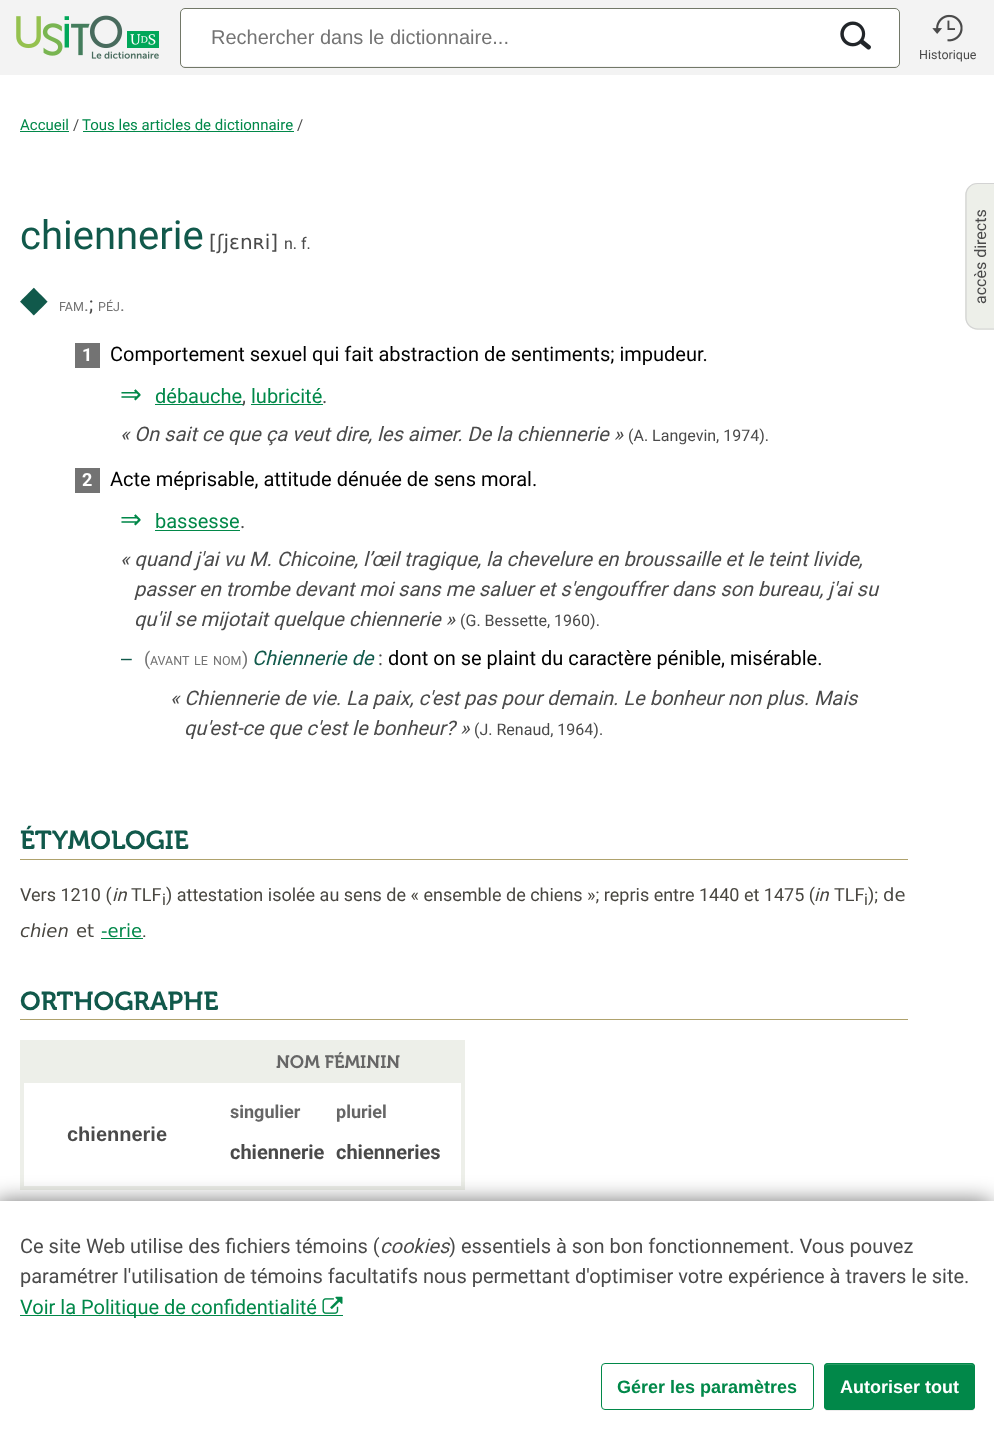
<!DOCTYPE html>
<meta charset="utf-8">
<style>body { margin: 0 } canvas { display: block }</style>
<canvas id="canvas" width="994" height="1439"></canvas>
<img id="img1" src="img_01.png" hidden>
<img id="img2" src="img_02.png" hidden>
<img id="img3" src="img_03.png" hidden>
<img id="img4" src="img_04.png" hidden>
<script>
window.onload = function () {
	const canvas = document.getElementById("canvas");
	const ctx = canvas.getContext("2d");
	ctx.miterLimit = 4;
	ctx.fontKerning = "normal";
	function txt(s, x, y) {
		ctx.fillText(s, x, y);
	}
	function fill(x, y, w, h) {
		ctx.fillRect(x, y, w, h);
	}
	function round(x, y, w, h, r) {
		ctx.beginPath();
		ctx.roundRect(x, y, w, h, r);
		ctx.fill();
	}
	function img(id, x, y, w, h) {
		ctx.drawImage(document.getElementById(id), x, y, w, h);
	}

	ctx.fillStyle = "#FFFFFF";
	fill(0, 0, 994, 1439);
	ctx.fillStyle = "#F3F3F3";
	fill(0, 0, 994, 75);
	img("img1", 16, 15, 143, 44);
	ctx.fillStyle = "#FFFFFF";
	round(181, 9, 718, 57, 4);
	ctx.beginPath();
	ctx.roundRect(180.5, 8.5, 719, 59, 4.5);
	ctx.strokeStyle = "#727868";
	ctx.stroke();
	img("img2", 840, 21, 31, 29);
	img("img3", 932, 14, 31, 28);
	ctx.fillStyle = "#018849";
	fill(20, 131, 49, 1);
	fill(83, 131, 211, 1);
	ctx.fillStyle = "#737373";
	fill(75, 343, 25, 25);
	ctx.fillStyle = "#018849";
	fill(155, 404, 88, 1);
	fill(251, 404, 72, 1);
	ctx.fillStyle = "#737373";
	fill(75, 468, 25, 25);
	ctx.fillStyle = "#018849";
	fill(155, 530, 85, 1);
	ctx.fillStyle = "#AFA26D";
	fill(20, 859, 888, 1);
	ctx.fillStyle = "#018849";
	fill(101, 938, 42, 1);
	ctx.fillStyle = "#AFA26D";
	fill(20, 1019, 888, 1);
	ctx.fillStyle = "#EDEFE9";
	fill(20, 1040, 445, 150);
	ctx.fillStyle = "#FFFFFF";
	fill(24, 1083, 437, 103);
	ctx.fillStyle = "rgba(0, 0, 0, 0.55)";
	ctx.filter = "blur(11px)";
	ctx.beginPath();
	ctx.rect(-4, 1201, 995, 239);
	ctx.fill();
	ctx.filter = "none";
	ctx.fillStyle = "#FFFFFF";
	fill(0, 1201, 994, 238);
	ctx.fillStyle = "#018849";
	fill(20, 1315, 323, 1);
	img("img4", 322, 1296, 21, 18);
	ctx.beginPath();
	ctx.roundRect(601.5, 1363.5, 212, 46, 3.5);
	ctx.strokeStyle = "#018849";
	ctx.stroke();
	ctx.fillStyle = "rgba(0, 0, 0, 0.07)";
	ctx.filter = "blur(0.5px)";
	ctx.beginPath();
	ctx.roundRect(824, 1364, 151, 47, 4);
	ctx.fill();
	ctx.filter = "none";
	ctx.fillStyle = "#018849";
	round(824, 1363, 151, 47, 4);
	ctx.fillStyle = "#279A64";
	ctx.beginPath();
	ctx.moveTo(828, 1365);
	ctx.lineTo(971, 1365);
	ctx.bezierCurveTo(973, 1365, 974, 1366, 974, 1368);
	ctx.bezierCurveTo(974, 1366, 974, 1364, 972, 1364);
	ctx.lineTo(827, 1364);
	ctx.bezierCurveTo(825, 1364, 825, 1366, 825, 1368);
	ctx.bezierCurveTo(825, 1366, 826, 1365, 828, 1365);
	ctx.closePath();
	ctx.fill();
	ctx.beginPath();
	ctx.roundRect(824.5, 1363.5, 150, 46, 3.5);
	ctx.stroke();
	ctx.fillStyle = "#EDEFE9";
	ctx.beginPath();
	ctx.moveTo(965, 317);
	ctx.lineTo(965, 195);
	ctx.bezierCurveTo(965, 188, 971, 183, 978, 183);
	ctx.lineTo(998, 183);
	ctx.lineTo(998, 330);
	ctx.lineTo(978, 330);
	ctx.bezierCurveTo(971, 330, 965, 324, 965, 317);
	ctx.closePath();
	ctx.fill();
	ctx.beginPath();
	ctx.moveTo(966, 317.5);
	ctx.lineTo(966, 195);
	ctx.bezierCurveTo(966, 188.5, 971, 183.5, 977.5, 183.5);
	ctx.lineTo(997, 183.5);
	ctx.lineTo(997, 329);
	ctx.lineTo(977.5, 329);
	ctx.bezierCurveTo(971, 329, 966, 324, 966, 317.5);
	ctx.closePath();
	ctx.strokeStyle = "#D3D3D3";
	ctx.lineWidth = 1.2;
	ctx.stroke();
	ctx.font = "20px Liberation Sans";
	ctx.fillStyle = "#737373";
	txt("Rechercher dans le dictionnaire...", 211, 44);
	ctx.font = "12.5px Roboto";
	ctx.fillStyle = "#4A4A4A";
	txt("Historique", 919, 59);
	ctx.font = "15px Roboto";
	ctx.fillStyle = "#018849";
	txt("Accueil", 20, 130);
	ctx.fillStyle = "#4A4A4A";
	txt("/", 73, 130);
	ctx.fillStyle = "#018849";
	txt("Tous les articles de dictionnaire", 82, 130);
	ctx.fillStyle = "#4A4A4A";
	txt("/", 297, 130);
	ctx.font = "40px Roboto";
	ctx.fillStyle = "#11594B";
	txt("chiennerie", 20, 249);
	ctx.font = "20px DejaVu Sans";
	ctx.fillStyle = "#4A4A4A";
	txt("[ʃjɛnʀi]", 209, 249);
	ctx.font = "16px Roboto";
	txt("n. f.", 284, 249);
	ctx.font = "36px DejaVu Sans";
	ctx.fillStyle = "#11594B";
	txt("◆", 20, 311);
	ctx.font = "12.5px Roboto";
	ctx.fillStyle = "#737373";
	txt("FAM", 59, 311);
	ctx.font = "18px Roboto";
	txt(".", 84, 311);
	ctx.font = "20px Roboto";
	ctx.fillStyle = "#4A4A4A";
	txt(";", 89, 311);
	ctx.font = "12.5px Roboto";
	ctx.fillStyle = "#737373";
	txt("PÉJ", 98, 311);
	ctx.font = "18px Roboto";
	txt(".", 120, 311);
	ctx.font = "bold 18px Roboto";
	ctx.fillStyle = "#FFFFFF";
	txt("1", 82, 361);
	ctx.font = "20px Roboto";
	ctx.fillStyle = "#000000";
	txt("Comportement sexuel qui fait abstraction de sentiments; impudeur.", 110, 361);
	ctx.font = "26px DejaVu Sans";
	ctx.fillStyle = "#018849";
	txt("⇒", 120, 403);
	ctx.font = "20px Roboto";
	txt("débauche", 155, 403);
	txt("lubricité", 251, 403);
	ctx.fillStyle = "#4A4A4A";
	txt(",", 242, 403);
	txt(".", 322, 403);
	ctx.font = "italic 20px Roboto";
	txt("« On sait ce que ça veut dire, les aimer. De la chiennerie »", 120, 441);
	ctx.font = "16px Roboto";
	txt("(A. Langevin, 1974).", 628, 441);
	ctx.font = "bold 18px Roboto";
	ctx.fillStyle = "#FFFFFF";
	txt("2", 82, 486);
	ctx.font = "20px Roboto";
	ctx.fillStyle = "#000000";
	txt("Acte méprisable, attitude dénuée de sens moral.", 110, 486);
	ctx.font = "26px DejaVu Sans";
	ctx.fillStyle = "#018849";
	txt("⇒", 120, 528);
	ctx.font = "20px Roboto";
	txt("bassesse", 155, 528);
	ctx.fillStyle = "#4A4A4A";
	txt(".", 240, 528);
	ctx.font = "italic 20px Roboto";
	txt("« quand j'ai vu M. Chicoine, l’œil tragique, la chevelure en broussaille et le teint livide,", 120, 566);
	txt("passer en trombe devant moi sans me saluer et s'engouffrer dans son bureau, j'ai su", 134, 596);
	txt("qu'il se mijotait quelque chiennerie »", 134, 626);
	ctx.font = "16px Roboto";
	txt("(G. Bessette, 1960).", 460, 626);
	ctx.font = "18px Roboto";
	ctx.fillStyle = "#737373";
	txt("(", 144, 665);
	ctx.font = "italic 20px Roboto";
	ctx.fillStyle = "#11594B";
	txt("Chiennerie de", 252, 665);
	ctx.font = "20px Roboto";
	ctx.fillStyle = "#4A4A4A";
	txt(":", 378, 665);
	ctx.fillStyle = "#000000";
	txt("dont on se plaint du caractère pénible, misérable.", 388, 665);
	ctx.font = "italic 20px Roboto";
	ctx.fillStyle = "#4A4A4A";
	txt("« Chiennerie de vie. La paix, c'est pas pour demain. Le bonheur non plus. Mais", 170, 705);
	txt("qu'est-ce que c'est le bonheur? »", 184, 735);
	ctx.font = "16px Roboto";
	txt("(J. Renaud, 1964).", 474, 735);
	ctx.font = "20px DejaVu Sans";
	ctx.fillStyle = "#11594B";
	txt("‒", 120, 665);
	ctx.font = "12.5px Roboto";
	ctx.fillStyle = "#737373";
	txt("AVANT", 150, 665);
	txt("LE", 194, 665);
	txt("NOM", 213, 665);
	ctx.font = "18px Roboto";
	txt(")", 242, 665);
	ctx.font = "600 26px 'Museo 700'";
	ctx.fillStyle = "#11594B";
	txt("ÉTYMOLOGIE", 20, 849);
	ctx.font = "18px Roboto";
	ctx.fillStyle = "#484640";
	txt("Vers 1210 (", 20, 901);
	ctx.font = "italic 18px Roboto";
	txt("in", 112, 901);
	ctx.font = "18px Roboto";
	txt("TLF", 131, 901);
	ctx.font = "16px Roboto";
	txt("i", 162, 905);
	ctx.font = "18px Roboto";
	txt(") attestation isolée au sens de « ensemble de chiens »; repris entre 1440 et 1475 (", 166, 901);
	ctx.font = "italic 18px Roboto";
	txt("in", 814, 901);
	ctx.font = "18px Roboto";
	txt("TLF", 834, 901);
	ctx.font = "16px Roboto";
	txt("i", 864, 905);
	ctx.font = "18px Roboto";
	txt(");", 868, 901);
	ctx.font = "18px DejaVu Sans";
	txt("de", 883, 901);
	ctx.font = "italic 18px DejaVu Sans";
	txt("chien", 20, 937);
	ctx.font = "18px DejaVu Sans";
	txt("et", 76, 937);
	ctx.fillStyle = "#018849";
	txt("-erie", 101, 937);
	ctx.font = "18px Roboto";
	ctx.fillStyle = "#484640";
	txt(".", 142, 937);
	ctx.font = "600 26px 'Museo 700'";
	ctx.fillStyle = "#11594B";
	txt("ORTHOGRAPHE", 20, 1010);
	ctx.font = "600 18px 'Museo 700'";
	ctx.fillStyle = "#666666";
	txt("NOM FÉMININ", 276, 1068);
	ctx.font = "bold 20px Liberation Sans";
	ctx.fillStyle = "#4A4A4A";
	txt("chiennerie", 67, 1141);
	ctx.font = "bold 18px Roboto";
	ctx.fillStyle = "#666666";
	txt("singulier", 230, 1118);
	txt("pluriel", 336, 1118);
	ctx.font = "bold 20px Roboto";
	ctx.fillStyle = "#4A4A4A";
	txt("chiennerie", 230, 1159);
	txt("chienneries", 336, 1159);
	ctx.font = "20px Roboto";
	txt("Ce site Web utilise des fichiers témoins (", 20, 1253);
	ctx.font = "italic 20px Roboto";
	txt("cookies", 380, 1253);
	ctx.font = "20px Roboto";
	txt(") essentiels à son bon fonctionnement. Vous pouvez", 449, 1253);
	txt("paramétrer l'utilisation de témoins facultatifs nous permettant d'optimiser votre expérience à travers le site.", 20, 1283);
	ctx.fillStyle = "#018849";
	txt("Voir la Politique de confidentialité", 20, 1314);
	ctx.font = "bold 18px Liberation Sans";
	txt("Gérer les paramètres", 617, 1393);
	ctx.fillStyle = "#FFFFFF";
	txt("Autoriser tout", 840, 1393);
	ctx.font = "16px Roboto";
	ctx.fillStyle = "#4A4A4A";
	ctx.save();
	ctx.translate(986, 304);
	ctx.rotate(-90 * Math.PI / 180);
	ctx.fillText("accès directs", 0, 0);
	ctx.restore();
};
</script>
